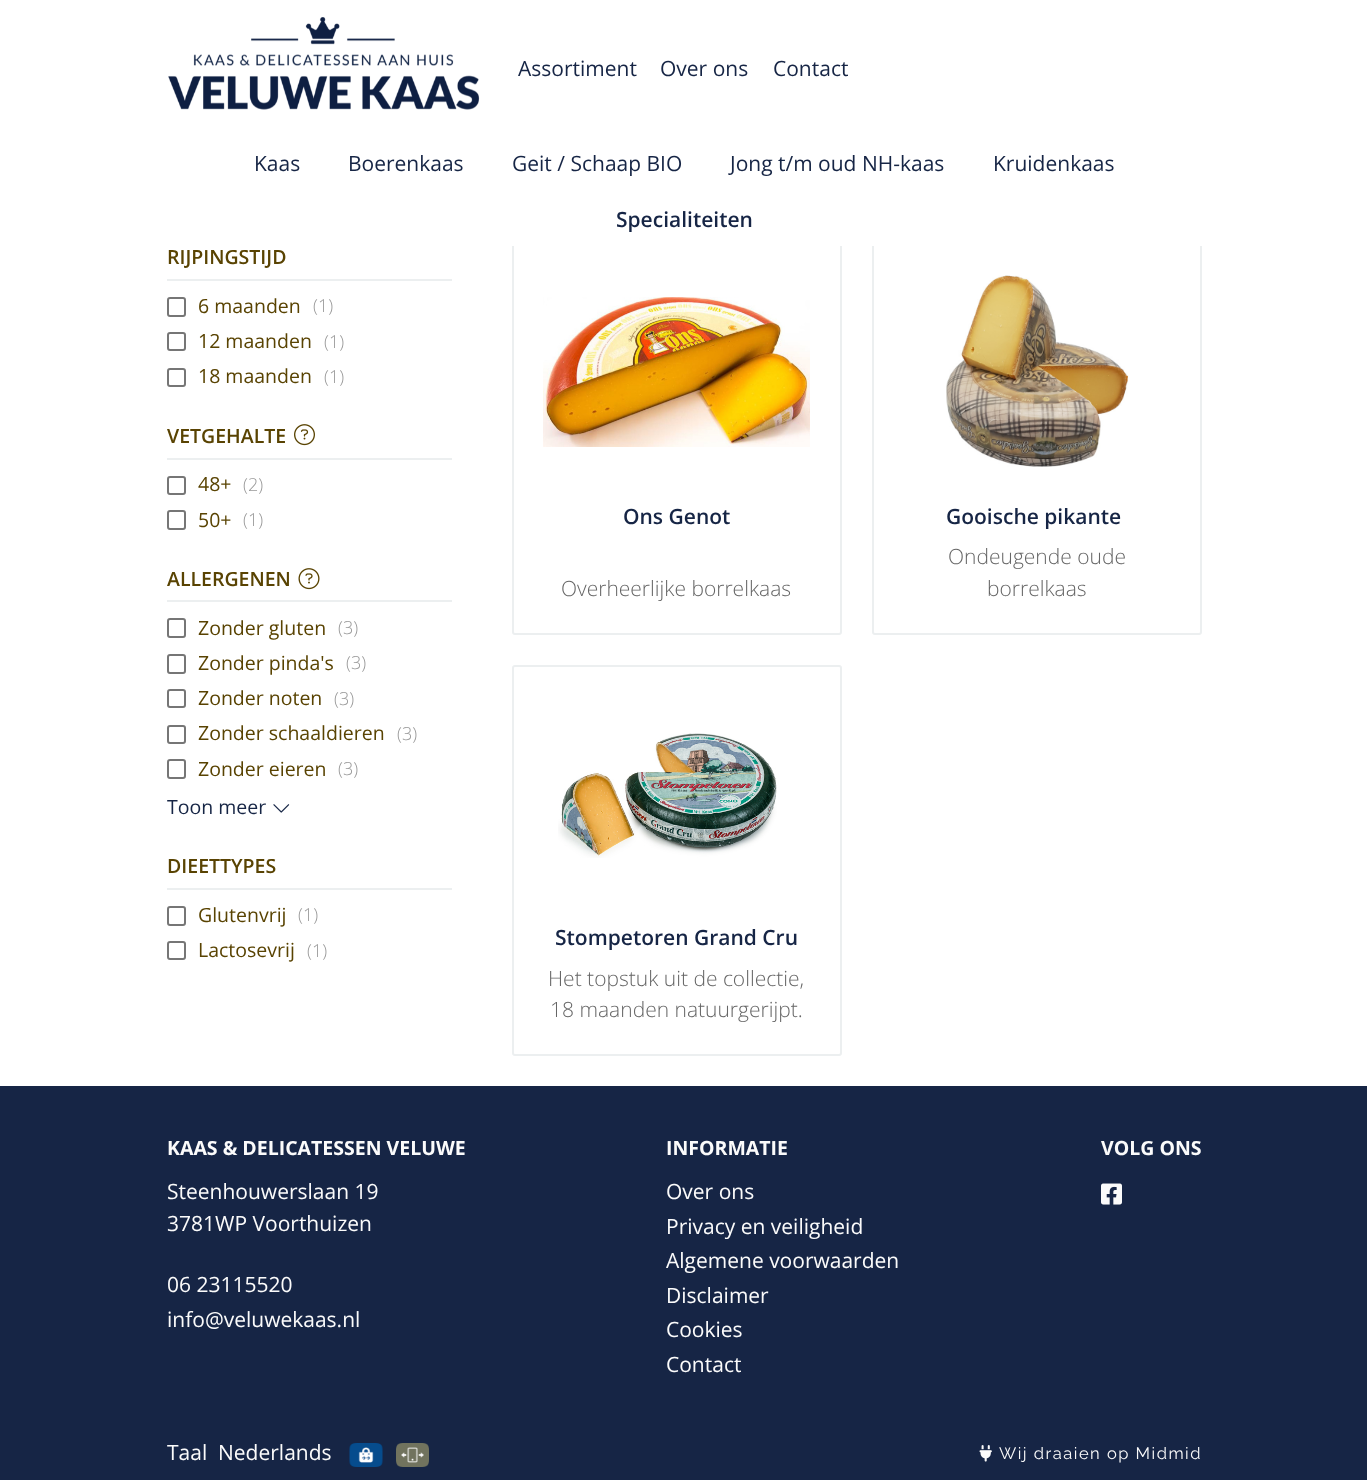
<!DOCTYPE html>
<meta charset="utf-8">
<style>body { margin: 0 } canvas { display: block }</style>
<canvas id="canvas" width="1367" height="1480"></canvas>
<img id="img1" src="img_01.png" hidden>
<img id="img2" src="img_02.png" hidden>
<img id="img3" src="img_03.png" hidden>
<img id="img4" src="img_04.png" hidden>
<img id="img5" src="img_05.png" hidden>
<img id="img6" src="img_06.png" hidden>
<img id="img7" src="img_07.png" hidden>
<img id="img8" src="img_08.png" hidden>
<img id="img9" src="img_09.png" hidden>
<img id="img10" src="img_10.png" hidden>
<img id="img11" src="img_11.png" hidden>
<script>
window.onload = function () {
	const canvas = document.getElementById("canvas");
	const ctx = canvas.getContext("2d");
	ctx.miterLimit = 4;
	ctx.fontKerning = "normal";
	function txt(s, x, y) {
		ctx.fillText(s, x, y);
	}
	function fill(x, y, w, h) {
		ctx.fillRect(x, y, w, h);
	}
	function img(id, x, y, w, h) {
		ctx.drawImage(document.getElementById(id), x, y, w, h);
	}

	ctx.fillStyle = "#FFFFFF";
	fill(0, 0, 1367, 1480);
	img("img1", 168, 17, 312, 93);
	ctx.beginPath();
	ctx.roundRect(513, 244, 328, 390, 2);
	ctx.strokeStyle = "#ECEFF0";
	ctx.lineWidth = 2;
	ctx.stroke();
	ctx.beginPath();
	ctx.roundRect(873, 244, 328, 390, 2);
	ctx.stroke();
	fill(512, 243, 690, 3);
	ctx.fillStyle = "#ECEFF0";
	fill(167, 279, 285, 2);
	ctx.beginPath();
	ctx.roundRect(168, 298, 17, 18, 2);
	ctx.strokeStyle = "#767676";
	ctx.stroke();
	ctx.beginPath();
	ctx.roundRect(168, 333, 17, 17, 2);
	ctx.stroke();
	ctx.beginPath();
	ctx.roundRect(168, 369, 17, 17, 2);
	ctx.stroke();
	fill(167, 458, 285, 2);
	img("img2", 294, 424, 21, 22);
	ctx.beginPath();
	ctx.roundRect(168, 477, 17, 17, 2);
	ctx.stroke();
	ctx.beginPath();
	ctx.roundRect(168, 511, 17, 18, 2);
	ctx.stroke();
	fill(167, 600, 285, 2);
	img("img3", 298, 568, 22, 22);
	ctx.beginPath();
	ctx.roundRect(168, 619, 17, 18, 2);
	ctx.stroke();
	ctx.beginPath();
	ctx.roundRect(168, 655, 17, 18, 2);
	ctx.stroke();
	ctx.beginPath();
	ctx.roundRect(168, 690, 17, 17, 2);
	ctx.stroke();
	ctx.beginPath();
	ctx.roundRect(168, 726, 17, 17, 2);
	ctx.stroke();
	ctx.beginPath();
	ctx.roundRect(168, 760, 17, 18, 2);
	ctx.stroke();
	img("img4", 273, 804, 17, 9);
	fill(167, 888, 285, 2);
	ctx.beginPath();
	ctx.roundRect(168, 907, 17, 18, 2);
	ctx.stroke();
	ctx.beginPath();
	ctx.roundRect(168, 942, 17, 17, 2);
	ctx.stroke();
	img("img5", 543, 297, 267, 150);
	img("img6", 946, 275, 183, 192);
	ctx.beginPath();
	ctx.roundRect(513, 666, 328, 389, 2);
	ctx.strokeStyle = "#ECEFF0";
	ctx.stroke();
	img("img7", 558, 733, 219, 125);
	ctx.fillStyle = "#162545";
	fill(0, 1086, 1367, 394);
	img("img8", 1101, 1183, 21, 22);
	img("img9", 349, 1443, 34, 24);
	img("img10", 396, 1443, 33, 24);
	img("img11", 979, 1445, 13, 17);
	ctx.font = "21px Open Sans";
	txt("Assortiment", 518, 76);
	txt("Over ons", 660, 76);
	txt("Contact", 773, 76);
	txt("Kaas", 254, 171);
	txt("Boerenkaas", 348, 171);
	txt("Geit / Schaap BIO", 512, 171);
	txt("Jong t/m oud NH-kaas", 730, 171);
	txt("Kruidenkaas", 993, 171);
	ctx.font = "600 21px Open Sans";
	txt("Specialiteiten", 616, 227);
	ctx.font = "600 19.5px Open Sans";
	ctx.fillStyle = "#594302";
	txt("RIJPINGSTIJD", 167, 264);
	ctx.font = "19.5px Open Sans";
	txt("6 maanden", 198, 313);
	ctx.font = "300 18px Open Sans";
	ctx.fillStyle = "#999999";
	txt("(1)", 313, 312);
	ctx.font = "19.5px Open Sans";
	ctx.fillStyle = "#594302";
	txt("12 maanden", 198, 348);
	ctx.font = "300 18px Open Sans";
	ctx.fillStyle = "#999999";
	txt("(1)", 324, 348);
	ctx.font = "19.5px Open Sans";
	ctx.fillStyle = "#594302";
	txt("18 maanden", 198, 383);
	ctx.font = "300 18px Open Sans";
	ctx.fillStyle = "#999999";
	txt("(1)", 324, 383);
	ctx.font = "600 19.5px Open Sans";
	ctx.fillStyle = "#594302";
	txt("VETGEHALTE", 167, 443);
	ctx.font = "19.5px Open Sans";
	txt("48+", 198, 491);
	ctx.font = "300 18px Open Sans";
	ctx.fillStyle = "#999999";
	txt("(2)", 243, 491);
	ctx.font = "19.5px Open Sans";
	ctx.fillStyle = "#594302";
	txt("50+", 198, 527);
	ctx.font = "300 18px Open Sans";
	ctx.fillStyle = "#999999";
	txt("(1)", 243, 526);
	ctx.font = "600 19.5px Open Sans";
	ctx.fillStyle = "#594302";
	txt("ALLERGENEN", 167, 586);
	ctx.font = "19.5px Open Sans";
	txt("Zonder gluten", 198, 635);
	ctx.font = "300 18px Open Sans";
	ctx.fillStyle = "#999999";
	txt("(3)", 338, 634);
	ctx.font = "19.5px Open Sans";
	ctx.fillStyle = "#594302";
	txt("Zonder pinda's", 198, 670);
	ctx.font = "300 18px Open Sans";
	ctx.fillStyle = "#999999";
	txt("(3)", 346, 669);
	ctx.font = "19.5px Open Sans";
	ctx.fillStyle = "#594302";
	txt("Zonder noten", 198, 705);
	ctx.font = "300 18px Open Sans";
	ctx.fillStyle = "#999999";
	txt("(3)", 334, 705);
	ctx.font = "19.5px Open Sans";
	ctx.fillStyle = "#594302";
	txt("Zonder schaaldieren", 198, 740);
	ctx.font = "300 18px Open Sans";
	ctx.fillStyle = "#999999";
	txt("(3)", 397, 740);
	ctx.font = "19.5px Open Sans";
	ctx.fillStyle = "#594302";
	txt("Zonder eieren", 198, 776);
	ctx.font = "300 18px Open Sans";
	ctx.fillStyle = "#999999";
	txt("(3)", 338, 775);
	ctx.font = "19.5px Open Sans";
	ctx.fillStyle = "#162545";
	txt("Toon meer", 167, 814);
	ctx.font = "600 19.5px Open Sans";
	ctx.fillStyle = "#594302";
	txt("DIEETTYPES", 167, 873);
	ctx.font = "19.5px Open Sans";
	txt("Glutenvrij", 198, 922);
	ctx.font = "300 18px Open Sans";
	ctx.fillStyle = "#999999";
	txt("(1)", 298, 921);
	ctx.font = "19.5px Open Sans";
	ctx.fillStyle = "#594302";
	txt("Lactosevrij", 198, 957);
	ctx.font = "300 18px Open Sans";
	ctx.fillStyle = "#999999";
	txt("(1)", 307, 957);
	ctx.font = "600 21px Open Sans";
	ctx.fillStyle = "#162545";
	txt("Ons Genot", 623, 524);
	ctx.font = "300 21px Open Sans";
	ctx.fillStyle = "#666666";
	txt("Overheerlijke borrelkaas", 561, 596);
	ctx.font = "600 21px Open Sans";
	ctx.fillStyle = "#162545";
	txt("Gooische pikante", 946, 524);
	ctx.font = "300 21px Open Sans";
	ctx.fillStyle = "#666666";
	txt("Ondeugende oude", 948, 564);
	txt("borrelkaas", 987, 596);
	ctx.font = "600 21px Open Sans";
	ctx.fillStyle = "#162545";
	txt("Stompetoren Grand Cru", 555, 945);
	ctx.font = "300 21px Open Sans";
	ctx.fillStyle = "#666666";
	txt("Het topstuk uit de collectie,", 548, 986);
	txt("18 maanden natuurgerijpt.", 550, 1017);
	ctx.font = "bold 19.5px Open Sans";
	ctx.fillStyle = "#FBFBFB";
	txt("KAAS & DELICATESSEN VELUWE", 167, 1155);
	ctx.font = "21px Open Sans";
	txt("Steenhouwerslaan 19", 167, 1199);
	txt("3781WP Voorthuizen", 167, 1231);
	txt("06 23115520", 167, 1292);
	txt("info@veluwekaas.nl", 167, 1327);
	ctx.font = "bold 19.5px Open Sans";
	txt("INFORMATIE", 666, 1155);
	ctx.font = "21px Open Sans";
	txt("Over ons", 666, 1199);
	txt("Privacy en veiligheid", 666, 1234);
	txt("Algemene voorwaarden", 666, 1268);
	txt("Disclaimer", 666, 1303);
	txt("Cookies", 666, 1337);
	txt("Contact", 666, 1372);
	ctx.font = "bold 19.5px Open Sans";
	txt("VOLG ONS", 1101, 1155);
	ctx.font = "21px Open Sans";
	txt("Taal", 167, 1460);
	txt("Nederlands", 218, 1460);
	ctx.letterSpacing = "1.5px";
	ctx.font = "16.5px Raleway";
	txt("Wij draaien op Midmid", 999, 1459);
};
</script>
